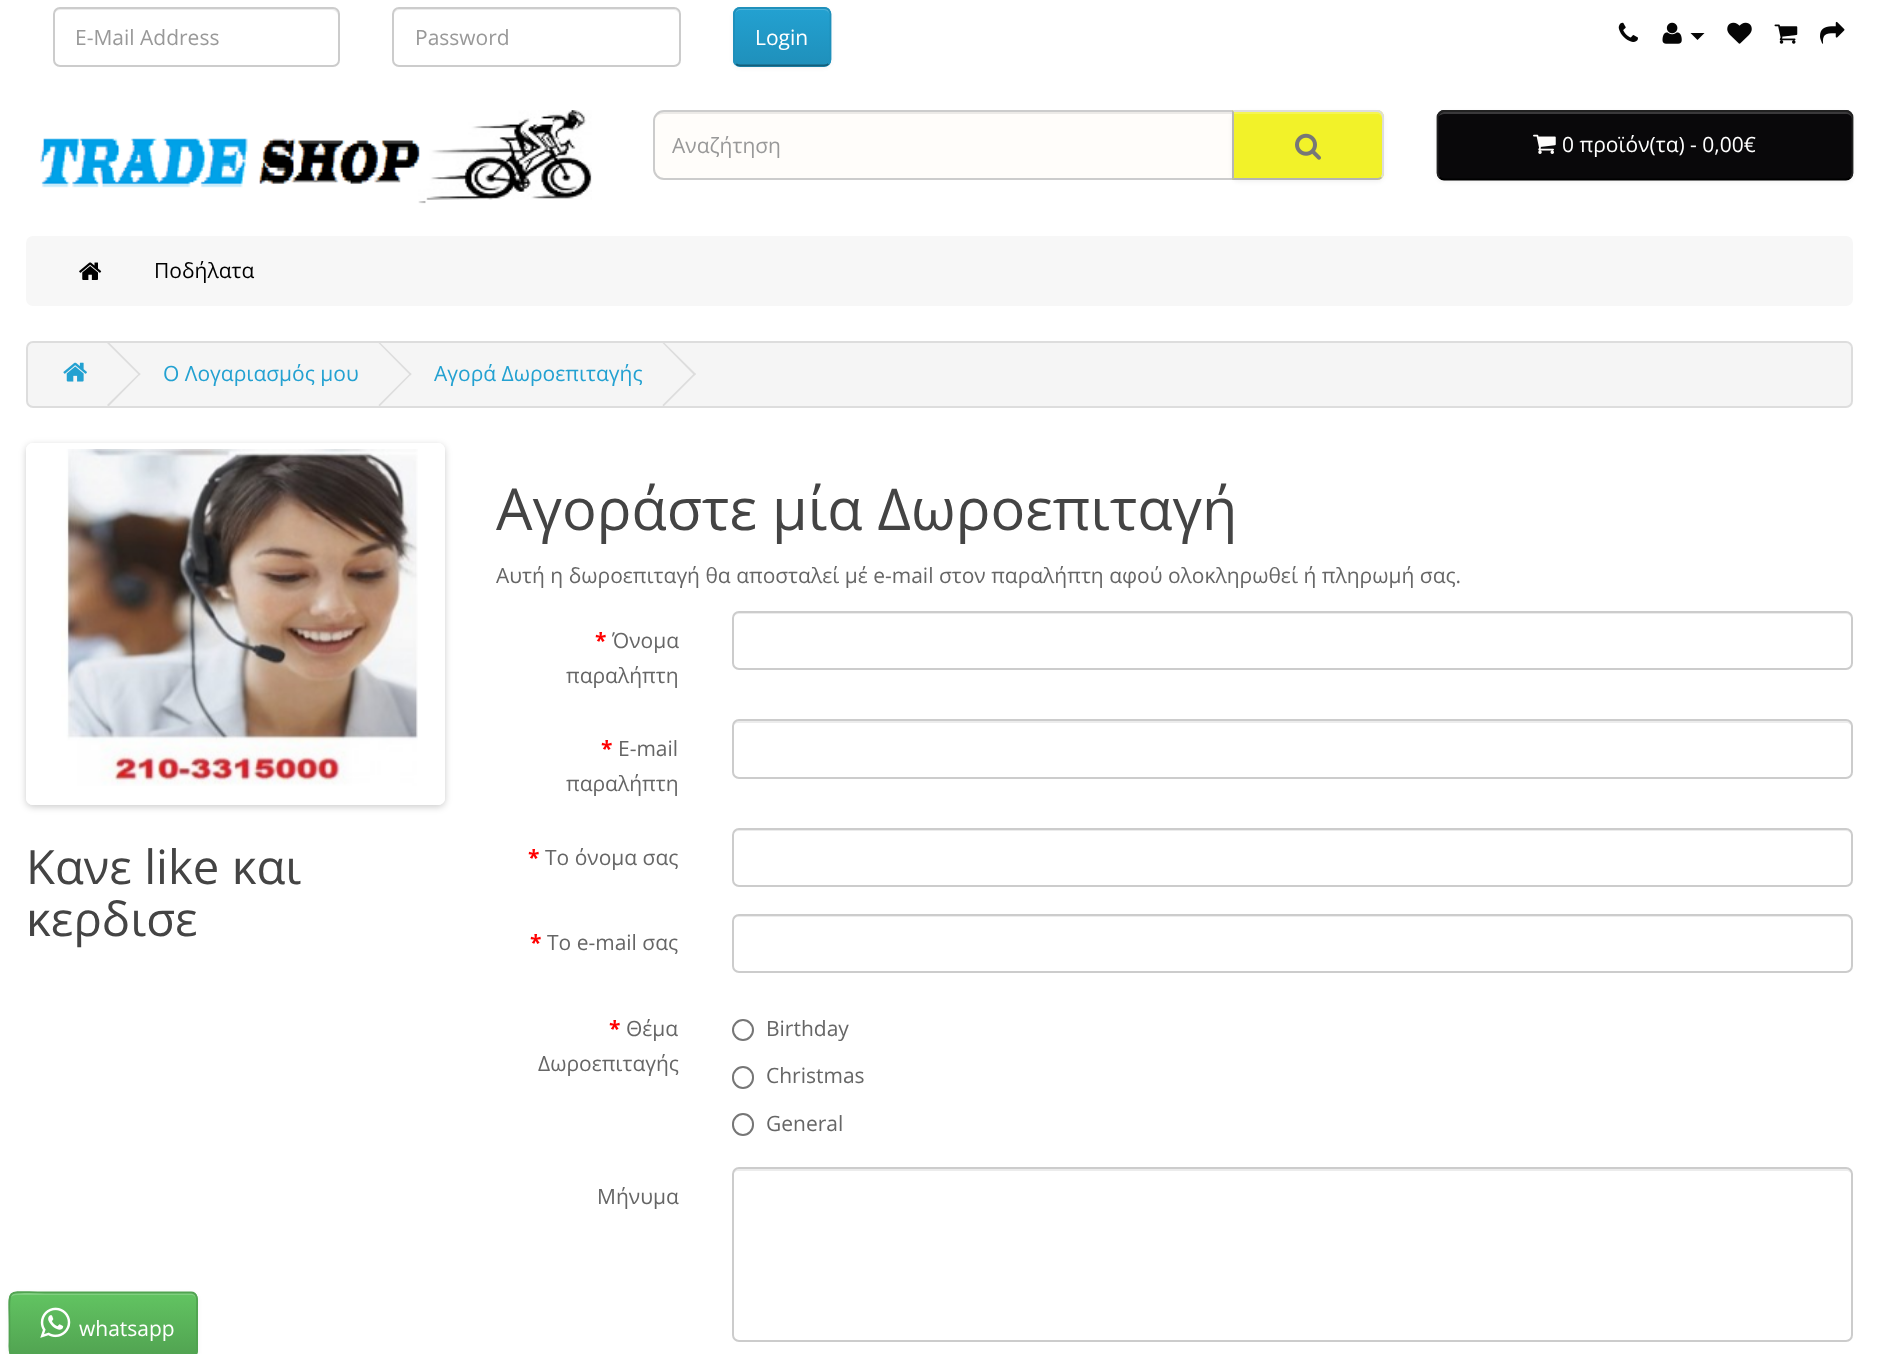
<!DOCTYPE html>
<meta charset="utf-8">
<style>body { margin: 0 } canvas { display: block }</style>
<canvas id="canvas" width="1878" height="1354"></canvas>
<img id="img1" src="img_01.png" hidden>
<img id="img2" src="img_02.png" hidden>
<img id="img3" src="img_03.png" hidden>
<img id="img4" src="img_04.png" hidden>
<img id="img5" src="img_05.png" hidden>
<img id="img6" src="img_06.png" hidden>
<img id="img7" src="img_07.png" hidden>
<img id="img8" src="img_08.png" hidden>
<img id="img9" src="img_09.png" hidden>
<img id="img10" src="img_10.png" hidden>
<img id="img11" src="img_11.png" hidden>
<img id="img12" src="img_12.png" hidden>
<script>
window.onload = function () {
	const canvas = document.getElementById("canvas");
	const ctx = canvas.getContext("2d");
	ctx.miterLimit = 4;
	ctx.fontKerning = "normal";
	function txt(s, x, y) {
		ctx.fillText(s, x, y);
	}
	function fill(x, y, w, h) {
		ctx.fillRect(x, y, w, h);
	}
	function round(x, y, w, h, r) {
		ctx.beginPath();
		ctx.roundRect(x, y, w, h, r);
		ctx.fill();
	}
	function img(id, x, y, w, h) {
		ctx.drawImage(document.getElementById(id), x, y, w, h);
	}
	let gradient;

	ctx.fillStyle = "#FFFFFF";
	fill(0, 0, 1878, 1354);
	ctx.fillStyle = "#ECECEC";
	ctx.beginPath();
	ctx.moveTo(60, 10);
	ctx.lineTo(332, 10);
	ctx.bezierCurveTo(335, 10, 338, 13, 338, 16);
	ctx.lineTo(338, 14);
	ctx.bezierCurveTo(338, 11, 336, 9, 333, 9);
	ctx.lineTo(59, 9);
	ctx.bezierCurveTo(56, 9, 54, 11, 54, 14);
	ctx.lineTo(54, 16);
	ctx.bezierCurveTo(54, 13, 57, 10, 60, 10);
	ctx.closePath();
	ctx.fill();
	ctx.beginPath();
	ctx.roundRect(54, 8, 285, 58, 6);
	ctx.strokeStyle = "#CCCCCC";
	ctx.lineWidth = 2;
	ctx.stroke();
	ctx.beginPath();
	ctx.moveTo(399, 10);
	ctx.lineTo(674, 10);
	ctx.bezierCurveTo(677, 10, 679, 13, 679, 16);
	ctx.bezierCurveTo(679, 13, 678, 9, 674, 9);
	ctx.lineTo(398, 9);
	ctx.bezierCurveTo(394, 10, 394, 13, 394, 16);
	ctx.bezierCurveTo(394, 13, 396, 10, 399, 10);
	ctx.closePath();
	ctx.fill();
	ctx.beginPath();
	ctx.roundRect(393, 8, 287, 58, 6);
	ctx.stroke();
	ctx.fillStyle = "rgba(0, 0, 0, 0.05)";
	ctx.filter = "blur(2px)";
	ctx.beginPath();
	ctx.roundRect(733, 9, 98, 59, 7);
	ctx.fill();
	ctx.filter = "none";
	ctx.fillStyle = "#229AC8";
	round(733, 7, 98, 60, 7);
	ctx.save();
	ctx.beginPath();
	ctx.roundRect(733, 7, 98, 60, 7);
	ctx.clip();
	gradient = ctx.createLinearGradient(782, 9, 782, 65);
	gradient.addColorStop(0, "#23A1D1");
	gradient.addColorStop(1, "#1F90BB");
	ctx.fillStyle = gradient;
	fill(733, 9, 98, 56);
	ctx.restore();
	ctx.fillStyle = "rgba(255, 255, 255, 0.2)";
	ctx.beginPath();
	ctx.moveTo(740, 10);
	ctx.lineTo(824, 10);
	ctx.bezierCurveTo(827, 10, 830, 13, 830, 16);
	ctx.bezierCurveTo(830, 5, 819, 9, 811, 9);
	ctx.lineTo(754, 9);
	ctx.bezierCurveTo(746, 9, 735, 5, 735, 16);
	ctx.bezierCurveTo(735, 13, 737, 10, 740, 10);
	ctx.closePath();
	ctx.fill();
	ctx.beginPath();
	ctx.moveTo(828.5, 64);
	ctx.bezierCurveTo(827.5, 65, 826, 65.5, 824, 65.5);
	ctx.lineTo(740, 65.5);
	ctx.bezierCurveTo(738.5, 65.5, 737, 65, 736, 64);
	ctx.strokeStyle = "#145E7A";
	ctx.lineWidth = 1.8;
	ctx.stroke();
	ctx.beginPath();
	ctx.moveTo(736, 64);
	ctx.bezierCurveTo(735, 62.5, 734, 61, 734, 59.5);
	ctx.lineTo(734, 14);
	ctx.bezierCurveTo(734, 12.5, 735, 11, 736, 9.5);
	ctx.bezierCurveTo(737, 8.5, 738.5, 8, 740, 8);
	ctx.lineTo(824, 8);
	ctx.bezierCurveTo(826, 8, 827.5, 8.5, 828.5, 9.5);
	ctx.bezierCurveTo(829.5, 11, 830.5, 12.5, 830.5, 14);
	ctx.lineTo(830.5, 59.5);
	ctx.bezierCurveTo(830.5, 61, 829.5, 62.5, 828.5, 64);
	ctx.strokeStyle = "#1F90BB";
	ctx.stroke();
	img("img1", 1618, 22, 20, 20);
	img("img2", 1662, 22, 20, 22);
	ctx.fillStyle = "#050505";
	ctx.beginPath();
	ctx.moveTo(1690.5, 33);
	ctx.lineTo(1704.5, 33);
	ctx.lineTo(1697.5, 40);
	ctx.closePath();
	ctx.fill();
	img("img3", 1727, 22, 25, 22);
	img("img4", 1774, 24, 24, 20);
	img("img5", 1820, 21, 25, 23);
	img("img6", 40, 110, 552, 94);
	ctx.fillStyle = "#FFFDFA";
	ctx.beginPath();
	ctx.roundRect(653, 110, 581, 70, [11, 0, 0, 11]);
	ctx.fill();
	ctx.fillStyle = "#ECEAE7";
	ctx.beginPath();
	ctx.moveTo(663, 114);
	ctx.lineTo(1232, 114);
	ctx.lineTo(1232, 112);
	ctx.lineTo(664, 112);
	ctx.bezierCurveTo(660, 112, 657, 114, 656, 117);
	ctx.bezierCurveTo(657, 115, 660, 114, 663, 114);
	ctx.closePath();
	ctx.fill();
	ctx.beginPath();
	ctx.roundRect(654, 111, 579, 68, [10, 0, 0, 10]);
	ctx.strokeStyle = "#CCCCCC";
	ctx.lineWidth = 2;
	ctx.stroke();
	ctx.fillStyle = "rgba(0, 0, 0, 0.05)";
	ctx.filter = "blur(2px)";
	ctx.beginPath();
	ctx.roundRect(1232, 112, 152, 70, 7);
	ctx.fill();
	ctx.filter = "none";
	ctx.fillStyle = "#F2F229";
	ctx.beginPath();
	ctx.roundRect(1232, 110, 152, 70, [0, 7, 7, 0]);
	ctx.fill();
	ctx.fillStyle = "#F5F554";
	ctx.beginPath();
	ctx.moveTo(1234, 114);
	ctx.lineTo(1377, 114);
	ctx.bezierCurveTo(1380, 114, 1382, 116, 1382, 119);
	ctx.lineTo(1382, 175);
	ctx.lineTo(1381, 178);
	ctx.bezierCurveTo(1382, 177, 1383, 175, 1383, 174);
	ctx.lineTo(1383, 117);
	ctx.bezierCurveTo(1383, 114, 1381, 112, 1378, 112);
	ctx.lineTo(1234, 112);
	ctx.closePath();
	ctx.fill();
	ctx.fillStyle = "#DDDDDD";
	ctx.beginPath();
	ctx.moveTo(1234, 112);
	ctx.lineTo(1232, 110);
	ctx.lineTo(1379, 110);
	ctx.lineTo(1382, 112);
	ctx.lineTo(1381, 114);
	ctx.bezierCurveTo(1380, 113, 1379, 112, 1377, 112);
	ctx.closePath();
	ctx.fill();
	ctx.beginPath();
	ctx.moveTo(1382, 112);
	ctx.bezierCurveTo(1383, 113, 1384, 115, 1384, 117);
	ctx.lineTo(1384, 173);
	ctx.bezierCurveTo(1384, 175, 1383, 177, 1382, 178);
	ctx.lineTo(1381, 177);
	ctx.lineTo(1382, 174);
	ctx.lineTo(1382, 126);
	ctx.bezierCurveTo(1382, 125, 1383, 117, 1381, 114);
	ctx.closePath();
	ctx.fill();
	ctx.fillStyle = "#B3B3B3";
	ctx.beginPath();
	ctx.moveTo(1382, 178);
	ctx.bezierCurveTo(1381, 179, 1379, 180, 1377, 180);
	ctx.lineTo(1232, 180);
	ctx.lineTo(1234, 178);
	ctx.lineTo(1378, 178);
	ctx.lineTo(1381, 177);
	ctx.closePath();
	ctx.fill();
	ctx.fillStyle = "#B7B7B7";
	ctx.beginPath();
	ctx.moveTo(1232, 110);
	ctx.lineTo(1232, 180);
	ctx.lineTo(1234, 178);
	ctx.lineTo(1234, 112);
	ctx.closePath();
	ctx.fill();
	img("img7", 1295, 133, 26, 27);
	ctx.fillStyle = "rgba(0, 0, 0, 0.05)";
	ctx.filter = "blur(2px)";
	ctx.beginPath();
	ctx.roundRect(1437, 112, 416, 70, 7);
	ctx.fill();
	ctx.filter = "none";
	ctx.fillStyle = "#09080A";
	round(1437, 110, 416, 70, 7);
	ctx.fillStyle = "#3A393B";
	ctx.beginPath();
	ctx.moveTo(1444, 114);
	ctx.lineTo(1846, 114);
	ctx.bezierCurveTo(1849, 114, 1852, 116, 1852, 119);
	ctx.lineTo(1852, 117);
	ctx.bezierCurveTo(1852, 114, 1850, 112, 1847, 112);
	ctx.lineTo(1444, 112);
	ctx.bezierCurveTo(1442, 112, 1439, 114, 1439, 116);
	ctx.bezierCurveTo(1440, 115, 1442, 114, 1444, 114);
	ctx.closePath();
	ctx.fill();
	ctx.beginPath();
	ctx.moveTo(1850.5, 177.5);
	ctx.bezierCurveTo(1849.5, 178.5, 1848, 179.5, 1846, 179.5);
	ctx.lineTo(1444, 179.5);
	ctx.bezierCurveTo(1442, 179.5, 1440.5, 178.5, 1439.5, 177.5);
	ctx.strokeStyle = "#000000";
	ctx.lineWidth = 1.8;
	ctx.stroke();
	ctx.beginPath();
	ctx.moveTo(1439.5, 177.5);
	ctx.bezierCurveTo(1438.5, 176.5, 1437.5, 175, 1437.5, 173);
	ctx.lineTo(1437.5, 117);
	ctx.bezierCurveTo(1437.5, 115.5, 1438.5, 114, 1439.5, 113);
	ctx.bezierCurveTo(1440.5, 112, 1442, 111, 1444, 111);
	ctx.lineTo(1846, 111);
	ctx.bezierCurveTo(1848, 111, 1849.5, 112, 1850.5, 113);
	ctx.bezierCurveTo(1851.5, 114, 1852.5, 115.5, 1852.5, 117);
	ctx.lineTo(1852.5, 173);
	ctx.bezierCurveTo(1852.5, 175, 1851.5, 176.5, 1850.5, 177.5);
	ctx.strokeStyle = "#222222";
	ctx.stroke();
	img("img8", 1533, 134, 23, 20);
	ctx.fillStyle = "#F7F7F7";
	round(26, 236, 1827, 70, 7);
	img("img9", 79, 262, 23, 18);
	ctx.fillStyle = "#F5F5F5";
	ctx.beginPath();
	ctx.roundRect(27, 342, 1825, 65, 6);
	ctx.fill();
	ctx.strokeStyle = "#DDDDDD";
	ctx.lineWidth = 2;
	ctx.stroke();
	img("img10", 63, 362, 24, 20);
	ctx.fillStyle = "#DDDDDD";
	ctx.beginPath();
	ctx.moveTo(107, 343);
	ctx.lineTo(108.5, 342);
	ctx.lineTo(140.5, 374);
	ctx.lineTo(139.5, 375.5);
	ctx.closePath();
	ctx.fill();
	ctx.beginPath();
	ctx.moveTo(107, 405);
	ctx.lineTo(139.5, 373);
	ctx.lineTo(140.5, 374);
	ctx.lineTo(108.5, 406.5);
	ctx.closePath();
	ctx.fill();
	ctx.beginPath();
	ctx.moveTo(378.5, 343);
	ctx.lineTo(379.5, 342);
	ctx.lineTo(411.5, 374);
	ctx.lineTo(410.5, 375.5);
	ctx.closePath();
	ctx.fill();
	ctx.beginPath();
	ctx.moveTo(378.5, 405);
	ctx.lineTo(410.5, 373);
	ctx.lineTo(411.5, 374);
	ctx.lineTo(379.5, 406.5);
	ctx.closePath();
	ctx.fill();
	ctx.beginPath();
	ctx.moveTo(662.5, 343);
	ctx.lineTo(663.5, 342);
	ctx.lineTo(696, 374);
	ctx.lineTo(694.5, 375.5);
	ctx.closePath();
	ctx.fill();
	ctx.beginPath();
	ctx.moveTo(662.5, 405);
	ctx.lineTo(694.5, 373);
	ctx.lineTo(696, 374);
	ctx.lineTo(663.5, 406.5);
	ctx.closePath();
	ctx.fill();
	ctx.save();
	ctx.beginPath();
	ctx.moveTo(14, 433);
	ctx.lineTo(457, 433);
	ctx.lineTo(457, 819);
	ctx.lineTo(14, 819);
	ctx.closePath();
	ctx.moveTo(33, 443);
	ctx.lineTo(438, 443);
	ctx.bezierCurveTo(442, 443, 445, 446, 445, 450);
	ctx.lineTo(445, 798);
	ctx.bezierCurveTo(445, 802, 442, 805, 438, 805);
	ctx.lineTo(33, 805);
	ctx.bezierCurveTo(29, 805, 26, 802, 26, 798);
	ctx.lineTo(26, 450);
	ctx.bezierCurveTo(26, 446, 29, 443, 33, 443);
	ctx.closePath();
	ctx.clip("evenodd");
	ctx.fillStyle = "rgba(0, 0, 0, 0.2)";
	ctx.filter = "blur(3.5px)";
	ctx.beginPath();
	ctx.roundRect(26, 445, 419, 362, 7);
	ctx.fill();
	ctx.filter = "none";
	ctx.restore();
	ctx.beginPath();
	ctx.roundRect(29.5, 446.5, 412, 355, 3.5);
	ctx.strokeStyle = "#FFFFFF";
	ctx.lineWidth = 7;
	ctx.stroke();
	img("img11", 61, 449, 357, 337);
	ctx.fillStyle = "#ECECEC";
	ctx.beginPath();
	ctx.moveTo(738, 614);
	ctx.lineTo(1846, 614);
	ctx.bezierCurveTo(1849, 614, 1852, 617, 1852, 620);
	ctx.lineTo(1852, 618);
	ctx.bezierCurveTo(1852, 615, 1850, 613, 1847, 613);
	ctx.lineTo(738, 613);
	ctx.bezierCurveTo(735, 613, 733, 615, 733, 618);
	ctx.lineTo(733, 620);
	ctx.bezierCurveTo(733, 617, 736, 614, 738, 614);
	ctx.closePath();
	ctx.fill();
	ctx.beginPath();
	ctx.roundRect(733, 612, 1119, 57, 6);
	ctx.strokeStyle = "#CCCCCC";
	ctx.lineWidth = 2;
	ctx.stroke();
	ctx.beginPath();
	ctx.moveTo(738, 723);
	ctx.lineTo(1846, 723);
	ctx.bezierCurveTo(1849, 723, 1852, 725, 1852, 728);
	ctx.lineTo(1852, 726);
	ctx.bezierCurveTo(1852, 723, 1850, 721, 1847, 721);
	ctx.lineTo(738, 721);
	ctx.bezierCurveTo(735, 721, 733, 723, 733, 726);
	ctx.lineTo(733, 728);
	ctx.bezierCurveTo(733, 725, 736, 723, 738, 723);
	ctx.closePath();
	ctx.fill();
	ctx.beginPath();
	ctx.roundRect(733, 720, 1119, 58, 6);
	ctx.stroke();
	ctx.beginPath();
	ctx.moveTo(738, 831);
	ctx.lineTo(1846, 831);
	ctx.bezierCurveTo(1849, 831, 1852, 834, 1852, 836);
	ctx.bezierCurveTo(1852, 833, 1850, 830, 1847, 830);
	ctx.lineTo(738, 830);
	ctx.bezierCurveTo(735, 830, 733, 833, 733, 836);
	ctx.bezierCurveTo(733, 834, 736, 831, 738, 831);
	ctx.closePath();
	ctx.fill();
	ctx.beginPath();
	ctx.roundRect(733, 829, 1119, 57, 6);
	ctx.stroke();
	ctx.beginPath();
	ctx.moveTo(738, 917);
	ctx.lineTo(1846, 917);
	ctx.bezierCurveTo(1849, 917, 1852, 919, 1852, 922);
	ctx.lineTo(1852, 920);
	ctx.bezierCurveTo(1852, 917, 1850, 915, 1847, 915);
	ctx.lineTo(738, 915);
	ctx.bezierCurveTo(735, 915, 733, 917, 733, 920);
	ctx.lineTo(733, 922);
	ctx.bezierCurveTo(733, 919, 736, 917, 738, 917);
	ctx.closePath();
	ctx.fill();
	ctx.beginPath();
	ctx.roundRect(733, 915, 1119, 57, 6);
	ctx.stroke();
	ctx.beginPath();
	ctx.arc(743, 1030, 10, 0, Math.PI * 2);
	ctx.strokeStyle = "#767676";
	ctx.stroke();
	ctx.beginPath();
	ctx.roundRect(733, 1067, 20, 21, 10);
	ctx.stroke();
	ctx.beginPath();
	ctx.roundRect(733, 1114, 20, 21, 10);
	ctx.stroke();
	ctx.beginPath();
	ctx.moveTo(738, 1171);
	ctx.lineTo(1846, 1171);
	ctx.bezierCurveTo(1849, 1171, 1852, 1173, 1852, 1176);
	ctx.lineTo(1852, 1174);
	ctx.bezierCurveTo(1852, 1171, 1850, 1169, 1847, 1169);
	ctx.lineTo(738, 1169);
	ctx.bezierCurveTo(735, 1169, 733, 1171, 733, 1174);
	ctx.lineTo(733, 1176);
	ctx.bezierCurveTo(733, 1173, 736, 1171, 738, 1171);
	ctx.closePath();
	ctx.fill();
	ctx.beginPath();
	ctx.roundRect(733, 1168, 1119, 173, 6);
	ctx.strokeStyle = "#CCCCCC";
	ctx.stroke();
	ctx.fillStyle = "rgba(0, 0, 0, 0.05)";
	ctx.filter = "blur(2px)";
	ctx.beginPath();
	ctx.roundRect(9, 1293, 189, 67, 7);
	ctx.fill();
	ctx.filter = "none";
	ctx.save();
	ctx.beginPath();
	ctx.roundRect(9, 1292, 189, 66, 7);
	ctx.clip();
	gradient = ctx.createLinearGradient(103, 1293, 103, 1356);
	gradient.addColorStop(0, "#62C462");
	gradient.addColorStop(1, "#51A351");
	ctx.fillStyle = gradient;
	fill(9, 1293, 189, 61);
	ctx.restore();
	ctx.fillStyle = "#81CF81";
	ctx.beginPath();
	ctx.moveTo(16, 1295);
	ctx.lineTo(191, 1295);
	ctx.bezierCurveTo(194, 1295, 196, 1297, 196, 1300);
	ctx.lineTo(196, 1298);
	ctx.bezierCurveTo(196, 1295, 194, 1293, 191, 1293);
	ctx.lineTo(16, 1293);
	ctx.bezierCurveTo(14, 1293, 11, 1295, 11, 1297);
	ctx.bezierCurveTo(12, 1296, 14, 1295, 16, 1295);
	ctx.closePath();
	ctx.fill();
	ctx.beginPath();
	ctx.moveTo(11.5, 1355.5);
	ctx.bezierCurveTo(8.5, 1352, 9.5, 1345.5, 9.5, 1342);
	ctx.lineTo(9.5, 1325);
	ctx.bezierCurveTo(9.5, 1285.5, 3.5, 1292.5, 45, 1292.5);
	ctx.lineTo(191, 1292.5);
	ctx.bezierCurveTo(198.5, 1292.5, 197, 1302.5, 197, 1307);
	ctx.lineTo(197, 1342);
	ctx.bezierCurveTo(197, 1345.5, 198, 1352, 195, 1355.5);
	ctx.strokeStyle = "#51A351";
	ctx.lineWidth = 1.8;
	ctx.stroke();
	img("img12", 40, 1307, 31, 31);
	ctx.font = "21px Open Sans";
	ctx.fillStyle = "#999999";
	txt("E-Mail Address", 75, 45);
	txt("Password", 415, 45);
	ctx.fillStyle = "#FFFFFF";
	txt("Login", 755, 45);
	ctx.fillStyle = "#999999";
	txt("Αναζήτηση", 672, 153);
	ctx.fillStyle = "#FFFFFF";
	txt("0 προϊόν(τα) - 0,00€", 1562, 152);
	ctx.fillStyle = "#000000";
	txt("Ποδήλατα", 154, 278);
	ctx.fillStyle = "#23A1D1";
	txt("O Λογαριασμός μου", 163, 381);
	txt("Αγορά Δωροεπιταγής", 434, 381);
	ctx.font = "47.25px Open Sans";
	ctx.fillStyle = "#444444";
	txt("Κανε like και", 26, 884);
	txt("κερδισε", 26, 936);
	ctx.font = "57.75px Open Sans";
	txt("Αγοράστε μία Δωροεπιταγή", 496, 530);
	ctx.font = "21px Open Sans";
	ctx.fillStyle = "#666666";
	txt("Αυτή η δωροεπιταγή θα αποσταλεί μέ e-mail στον παραλήπτη αφού ολοκληρωθεί ή πληρωμή σας.", 496, 583);
	ctx.font = "bold 21px Open Sans";
	ctx.fillStyle = "#FF0000";
	txt("*", 595, 648);
	ctx.font = "21px Open Sans";
	ctx.fillStyle = "#666666";
	txt("Όνομα", 612, 648);
	txt("παραλήπτη", 566, 683);
	ctx.font = "bold 21px Open Sans";
	ctx.fillStyle = "#FF0000";
	txt("*", 601, 756);
	ctx.font = "21px Open Sans";
	ctx.fillStyle = "#666666";
	txt("E-mail", 618, 756);
	txt("παραλήπτη", 566, 791);
	ctx.font = "bold 21px Open Sans";
	ctx.fillStyle = "#FF0000";
	txt("*", 528, 865);
	ctx.font = "21px Open Sans";
	ctx.fillStyle = "#666666";
	txt("Το όνομα σας", 545, 865);
	ctx.font = "bold 21px Open Sans";
	ctx.fillStyle = "#FF0000";
	txt("*", 530, 950);
	ctx.font = "21px Open Sans";
	ctx.fillStyle = "#666666";
	txt("Το e-mail σας", 547, 950);
	ctx.font = "bold 21px Open Sans";
	ctx.fillStyle = "#FF0000";
	txt("*", 609, 1036);
	ctx.font = "21px Open Sans";
	ctx.fillStyle = "#666666";
	txt("Θέμα", 626, 1036);
	txt("Δωροεπιταγής", 538, 1071);
	txt("Birthday", 766, 1036);
	txt("Christmas", 766, 1083);
	txt("General", 766, 1131);
	txt("Μήνυμα", 597, 1204);
	ctx.fillStyle = "#FFFFFF";
	txt("whatsapp", 79, 1336);
};
</script>
